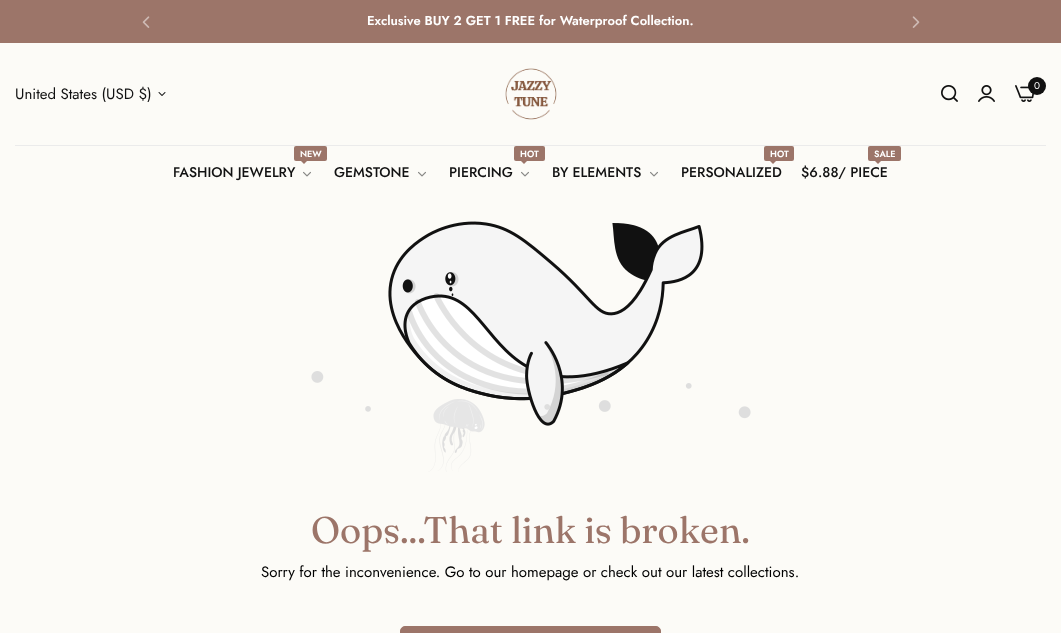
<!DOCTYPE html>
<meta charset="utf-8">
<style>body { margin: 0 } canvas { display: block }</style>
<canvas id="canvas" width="1061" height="633"></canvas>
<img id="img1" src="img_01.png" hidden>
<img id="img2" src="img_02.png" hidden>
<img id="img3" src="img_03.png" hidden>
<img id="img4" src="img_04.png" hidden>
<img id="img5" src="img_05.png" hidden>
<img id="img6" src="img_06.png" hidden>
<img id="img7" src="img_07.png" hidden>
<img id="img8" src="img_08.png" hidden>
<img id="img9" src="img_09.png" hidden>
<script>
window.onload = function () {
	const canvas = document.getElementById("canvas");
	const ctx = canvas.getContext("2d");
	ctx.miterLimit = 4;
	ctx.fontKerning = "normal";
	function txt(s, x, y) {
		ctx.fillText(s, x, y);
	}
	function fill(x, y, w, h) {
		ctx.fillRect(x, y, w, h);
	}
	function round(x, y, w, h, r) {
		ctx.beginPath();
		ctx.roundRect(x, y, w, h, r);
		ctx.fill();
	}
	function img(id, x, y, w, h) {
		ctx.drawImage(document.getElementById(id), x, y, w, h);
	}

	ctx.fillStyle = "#FCFBF7";
	fill(0, 0, 1061, 633);
	ctx.fillStyle = "#9C7569";
	fill(0, 0, 1061, 43);
	img("img1", 142, 16, 8, 12);
	img("img2", 912, 16, 8, 12);
	img("img3", 158, 92, 8, 4);
	img("img4", 505, 68, 52, 52);
	img("img5", 941, 85, 17, 17);
	img("img6", 978, 85, 17, 17);
	img("img7", 1015, 85, 19, 17);
	ctx.fillStyle = "#111111";
	ctx.beginPath();
	ctx.arc(1037, 86, 9, 0, Math.PI * 2);
	ctx.fill();
	ctx.fillStyle = "#EBEBEB";
	fill(15, 145, 1031, 1);
	ctx.fillStyle = "#9C7569";
	round(294, 146, 33, 15, 2);
	ctx.beginPath();
	ctx.moveTo(301, 161);
	ctx.lineTo(307, 161);
	ctx.lineTo(304, 164);
	ctx.closePath();
	ctx.fill();
	img("img8", 303, 171, 8, 6);
	img("img8", 418, 171, 8, 6);
	round(514, 146, 31, 15, 2);
	ctx.beginPath();
	ctx.moveTo(521, 161);
	ctx.lineTo(527, 161);
	ctx.lineTo(524, 164);
	ctx.closePath();
	ctx.fill();
	img("img8", 521, 171, 8, 6);
	img("img8", 650, 171, 8, 6);
	round(764, 146, 30, 15, 2);
	ctx.beginPath();
	ctx.moveTo(770, 161);
	ctx.lineTo(776, 161);
	ctx.lineTo(773, 164);
	ctx.closePath();
	ctx.fill();
	round(868, 146, 33, 15, 2);
	ctx.beginPath();
	ctx.moveTo(875, 161);
	ctx.lineTo(881, 161);
	ctx.lineTo(878, 164);
	ctx.closePath();
	ctx.fill();
	img("img9", 311, 221, 440, 251);
	ctx.beginPath();
	ctx.roundRect(400.5, 626.5, 260, 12, 4.5);
	ctx.fill();
	ctx.strokeStyle = "#9C7569";
	ctx.stroke();
	ctx.font = "600 13px Jost";
	ctx.fillStyle = "#FFFFFF";
	txt("Exclusive BUY 2 GET 1 FREE for Waterproof Collection.", 367, 25);
	ctx.font = "15px Jost";
	ctx.fillStyle = "#111111";
	txt("United States (USD $)", 15, 99);
	ctx.font = "10px Jost";
	ctx.fillStyle = "#FFFFFF";
	txt("0", 1034, 89);
	ctx.font = "600 9px Jost";
	txt("NEW", 300, 157);
	ctx.font = "500 14px Jost";
	ctx.fillStyle = "#111111";
	txt("FASHION JEWELRY", 173, 177);
	txt("GEMSTONE", 334, 177);
	ctx.font = "600 9px Jost";
	ctx.fillStyle = "#FFFFFF";
	txt("HOT", 520, 157);
	ctx.font = "500 14px Jost";
	ctx.fillStyle = "#111111";
	txt("PIERCING", 449, 177);
	txt("BY ELEMENTS", 552, 177);
	ctx.font = "600 9px Jost";
	ctx.fillStyle = "#FFFFFF";
	txt("HOT", 770, 157);
	ctx.font = "500 14px Jost";
	ctx.fillStyle = "#111111";
	txt("PERSONALIZED", 681, 177);
	ctx.font = "600 9px Jost";
	ctx.fillStyle = "#FFFFFF";
	txt("SALE", 874, 157);
	ctx.font = "500 14px Jost";
	ctx.fillStyle = "#111111";
	txt("$6.88/ PIECE", 801, 177);
	ctx.font = "37px Fraunces";
	ctx.fillStyle = "#9C7569";
	txt("Oops...That link is broken.", 311, 543);
	ctx.font = "15px Jost";
	ctx.fillStyle = "#000000";
	txt("Sorry for the inconvenience. Go to our homepage or check out our latest collections.", 261, 577);
};
</script>
